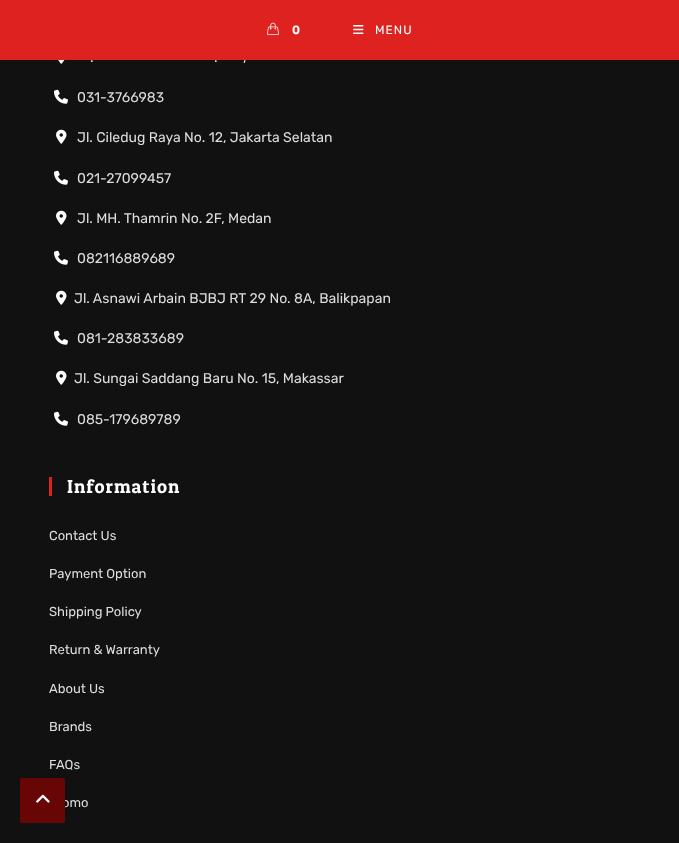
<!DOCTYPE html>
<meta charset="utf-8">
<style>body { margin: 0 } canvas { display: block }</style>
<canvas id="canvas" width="679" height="843"></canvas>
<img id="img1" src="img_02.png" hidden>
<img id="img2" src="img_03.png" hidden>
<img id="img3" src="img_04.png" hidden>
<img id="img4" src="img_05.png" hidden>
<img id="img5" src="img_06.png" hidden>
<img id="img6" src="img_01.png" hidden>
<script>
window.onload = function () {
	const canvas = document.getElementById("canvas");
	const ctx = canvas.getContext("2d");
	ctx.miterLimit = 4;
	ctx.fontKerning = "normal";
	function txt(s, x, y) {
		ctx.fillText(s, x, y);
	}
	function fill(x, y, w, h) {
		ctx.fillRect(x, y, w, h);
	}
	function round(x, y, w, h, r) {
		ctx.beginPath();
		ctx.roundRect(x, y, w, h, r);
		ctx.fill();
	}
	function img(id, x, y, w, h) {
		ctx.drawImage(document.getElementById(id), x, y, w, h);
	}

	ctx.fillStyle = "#111111";
	fill(0, 0, 679, 843);
	ctx.fillStyle = "#DE221F";
	fill(0, 0, 679, 60);
	img("img1", 267, 22, 12, 13);
	img("img2", 353, 25, 11, 9);
	img("img3", 58, 60, 7, 4);
	img("img4", 54, 89, 14, 15);
	img("img5", 56, 129, 11, 15);
	img("img4", 54, 170, 14, 15);
	img("img5", 56, 210, 11, 15);
	img("img4", 54, 250, 14, 15);
	img("img5", 56, 290, 11, 15);
	img("img4", 54, 330, 14, 15);
	img("img5", 56, 370, 11, 15);
	img("img4", 54, 411, 14, 15);
	fill(49, 477, 3, 19);
	ctx.letterSpacing = "1px";
	ctx.font = "600 12px Rubik";
	ctx.fillStyle = "#FFFFFF";
	txt("0", 292, 34);
	ctx.font = "300 12px Rubik";
	txt("MENU", 375, 34);
	ctx.letterSpacing = "0px";
	ctx.font = "300 14px Rubik";
	ctx.fillStyle = "#DDDDDD";
	txt(".", 90, 62);
	txt(".", 214, 62);
	txt(",", 243, 62);
	txt("031-3766983", 77, 102);
	txt("Jl. Ciledug Raya No. 12, Jakarta Selatan", 77, 142);
	txt("021-27099457", 77, 183);
	txt("Jl. MH. Thamrin No. 2F, Medan", 77, 223);
	txt("082116889689", 77, 263);
	txt("Jl. Asnawi Arbain BJBJ RT 29 No. 8A, Balikpapan", 74, 303);
	txt("081-283833689", 77, 343);
	txt("Jl. Sungai Saddang Baru No. 15, Makassar", 74, 383);
	txt("085-179689789", 77, 424);
	ctx.letterSpacing = "1px";
	ctx.font = "19px Patua One";
	ctx.fillStyle = "#FFFFFF";
	txt("Information", 67, 493);
	ctx.letterSpacing = "0px";
	ctx.font = "300 13px Rubik";
	ctx.fillStyle = "#DDDDDD";
	txt("Contact Us", 49, 540);
	txt("Payment Option", 49, 578);
	txt("Shipping Policy", 49, 616);
	txt("Return & Warranty", 49, 654);
	txt("About Us", 49, 693);
	txt("Brands", 49, 731);
	txt("FAQs", 49, 769);
	txt("omo", 62, 807);
	ctx.fillStyle = "#680606";
	round(20, 778, 45, 45, 2);
	img("img6", 36, 794, 14, 9);
};
</script>
